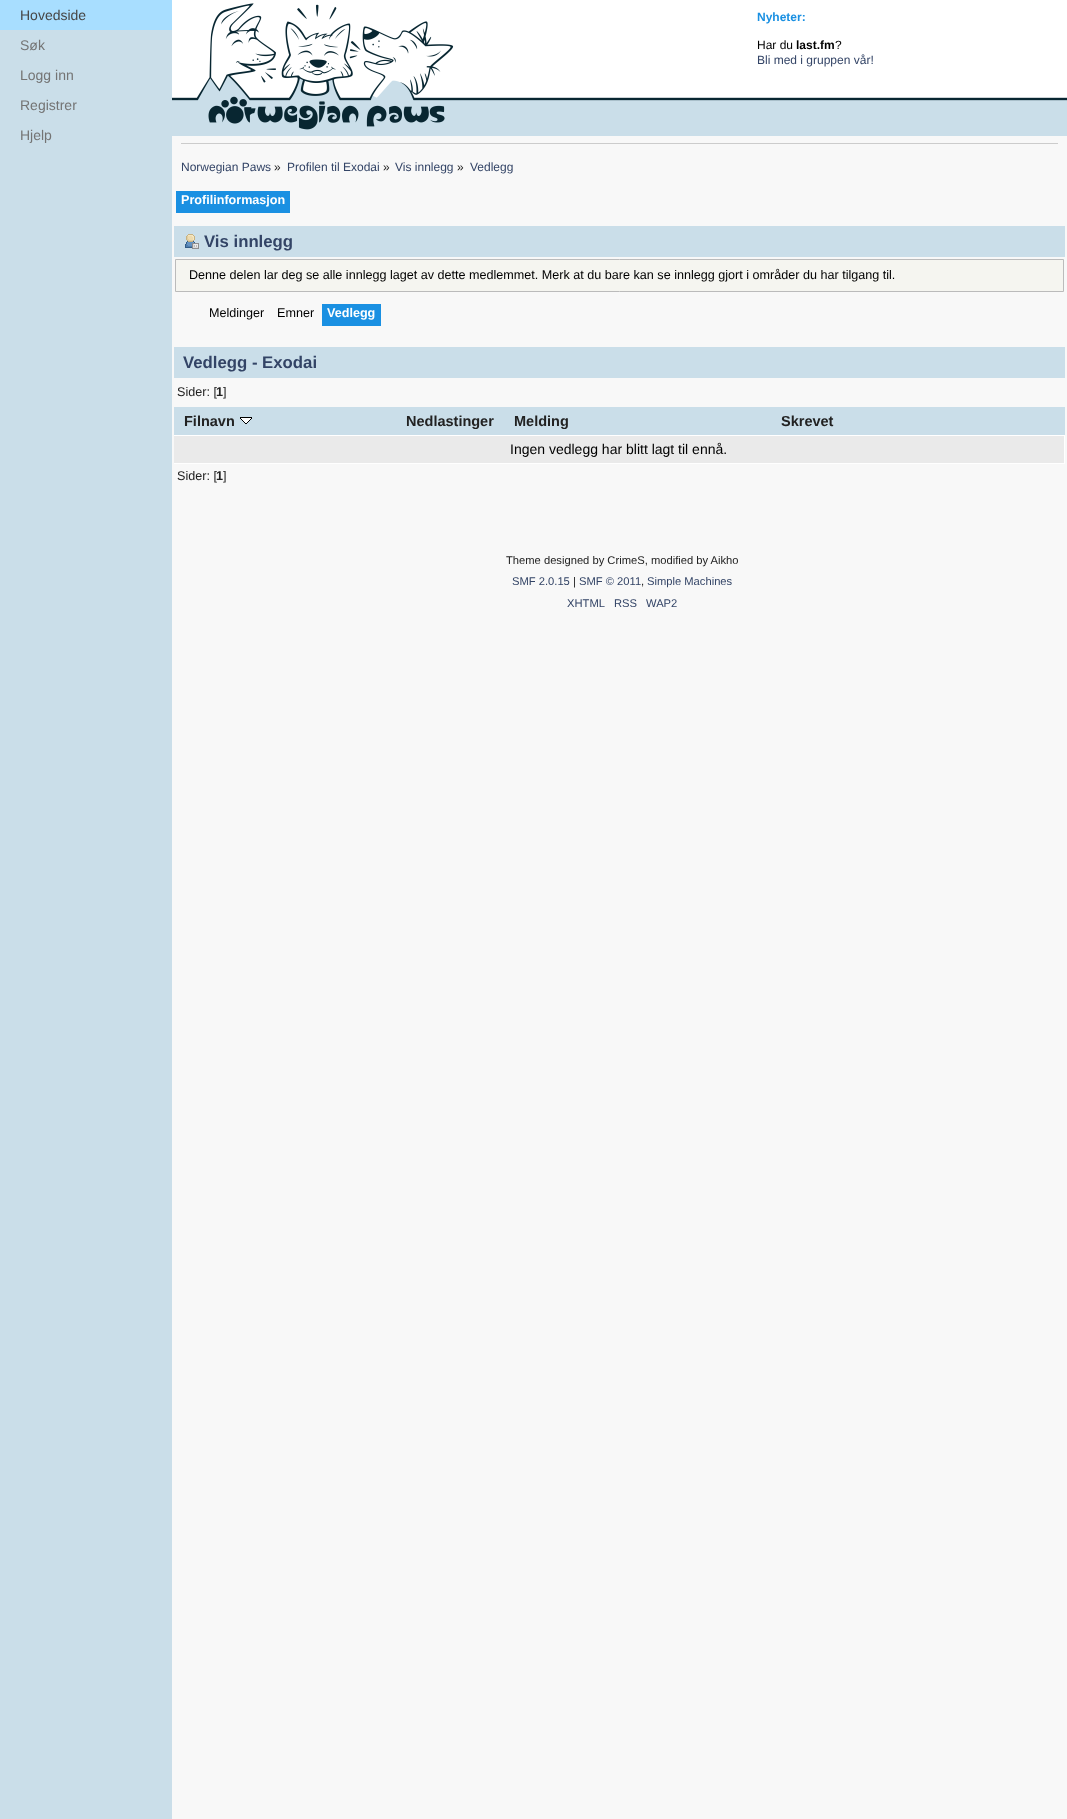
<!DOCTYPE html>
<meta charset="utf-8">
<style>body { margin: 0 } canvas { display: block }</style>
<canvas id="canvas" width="1067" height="1819"></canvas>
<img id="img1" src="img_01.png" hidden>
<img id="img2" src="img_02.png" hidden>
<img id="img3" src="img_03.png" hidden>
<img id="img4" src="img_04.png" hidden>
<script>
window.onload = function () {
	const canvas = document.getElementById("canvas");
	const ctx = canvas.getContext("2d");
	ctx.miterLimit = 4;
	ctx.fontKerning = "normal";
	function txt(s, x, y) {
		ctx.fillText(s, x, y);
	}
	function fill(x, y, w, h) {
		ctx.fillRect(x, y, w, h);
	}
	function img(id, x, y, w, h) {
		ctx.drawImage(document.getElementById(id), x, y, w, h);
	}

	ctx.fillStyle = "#F8F8F8";
	fill(0, 0, 1067, 1819);
	ctx.fillStyle = "#CADEE9";
	fill(0, 30, 172, 1789);
	ctx.fillStyle = "#A8DEFF";
	fill(0, 0, 172, 30);
	img("img1", 172, 0, 895, 136);
	img("img2", 196, 3, 258, 127);
	ctx.fillStyle = "#CCCCCC";
	fill(181, 143, 877, 1);
	ctx.fillStyle = "#1A90E2";
	fill(176, 191, 114, 22);
	ctx.fillStyle = "#CADEE9";
	fill(174, 226, 891, 31);
	img("img3", 185, 234, 14, 15);
	ctx.fillStyle = "#F5F5F0";
	ctx.beginPath();
	ctx.rect(175.5, 259.5, 888, 32);
	ctx.fill();
	ctx.strokeStyle = "#BBBBBB";
	ctx.stroke();
	ctx.fillStyle = "#1A90E2";
	fill(322, 304, 59, 22);
	ctx.fillStyle = "#CADEE9";
	fill(174, 347, 891, 31);
	fill(174, 407, 891, 28);
	ctx.fillStyle = "#FFFFFF";
	fill(174, 435, 891, 1);
	img("img4", 240, 417, 12, 7);
	ctx.fillStyle = "#EAEAEA";
	fill(174, 436, 890, 27);
	ctx.fillStyle = "#FFFFFF";
	fill(1064, 435, 1, 29);
	fill(174, 463, 891, 1);
	ctx.font = "14px Liberation Sans";
	ctx.fillStyle = "#464646";
	txt("Hovedside", 20, 20);
	ctx.fillStyle = "#747474";
	txt("Søk", 20, 50);
	txt("Logg inn", 20, 80);
	txt("Registrer", 20, 110);
	txt("Hjelp", 20, 140);
	ctx.font = "bold 12px Liberation Sans";
	ctx.fillStyle = "#1A90E2";
	txt("Nyheter:", 757, 21);
	ctx.font = "12px Liberation Sans";
	ctx.fillStyle = "#000000";
	txt("Har du", 757, 49);
	ctx.font = "bold 12px Liberation Sans";
	txt("last.fm", 796, 49);
	ctx.font = "12px Liberation Sans";
	txt("?", 835, 49);
	ctx.fillStyle = "#334466";
	txt("Bli med i gruppen vår!", 757, 64);
	txt("Norwegian Paws", 181, 171);
	ctx.fillStyle = "#222222";
	txt("»", 274, 171);
	ctx.fillStyle = "#334466";
	txt("Profilen til Exodai", 287, 171);
	ctx.fillStyle = "#222222";
	txt("»", 383, 171);
	ctx.fillStyle = "#334466";
	txt("Vis innlegg", 395, 171);
	ctx.fillStyle = "#222222";
	txt("»", 457, 171);
	ctx.fillStyle = "#334466";
	txt("Vedlegg", 470, 171);
	ctx.font = "bold 12.6px Liberation Sans";
	ctx.fillStyle = "#FFFFFF";
	txt("Profilinformasjon", 181, 204);
	ctx.font = "bold 16.75px Liberation Sans";
	ctx.fillStyle = "#334466";
	txt("Vis innlegg", 204, 247);
	ctx.font = "12.6px Liberation Sans";
	ctx.fillStyle = "#000000";
	txt("Denne delen lar deg se alle innlegg laget av dette medlemmet. Merk at du bare kan se innlegg gjort i områder du har tilgang til.", 189, 279);
	txt("Meldinger", 209, 317);
	txt("Emner", 277, 317);
	ctx.font = "bold 12.6px Liberation Sans";
	ctx.fillStyle = "#FFFFFF";
	txt("Vedlegg", 327, 317);
	ctx.font = "bold 16.75px Liberation Sans";
	ctx.fillStyle = "#334466";
	txt("Vedlegg - Exodai", 183, 368);
	ctx.font = "12.6px Liberation Sans";
	ctx.fillStyle = "#222222";
	txt("Sider: [", 177, 396);
	ctx.font = "bold 12.6px Liberation Sans";
	txt("1", 216, 396);
	ctx.font = "12.6px Liberation Sans";
	txt("]", 223, 396);
	ctx.font = "bold 14.5px Liberation Sans";
	txt("Filnavn", 184, 426);
	txt("Nedlastinger", 406, 426);
	txt("Melding", 514, 426);
	txt("Skrevet", 781, 426);
	ctx.font = "14px Liberation Sans";
	ctx.fillStyle = "#000000";
	txt("Ingen vedlegg har blitt lagt til ennå.", 510, 454);
	ctx.font = "12.6px Liberation Sans";
	ctx.fillStyle = "#222222";
	txt("Sider: [", 177, 480);
	ctx.font = "bold 12.6px Liberation Sans";
	txt("1", 216, 480);
	ctx.font = "12.6px Liberation Sans";
	txt("]", 223, 480);
	ctx.font = "11.2px Liberation Sans";
	txt("Theme designed by CrimeS, modified by Aikho", 506, 564);
	ctx.fillStyle = "#334466";
	txt("SMF 2.0.15", 512, 585);
	ctx.fillStyle = "#222222";
	txt("|", 573, 585);
	ctx.fillStyle = "#334466";
	txt("SMF © 2011", 579, 585);
	ctx.fillStyle = "#222222";
	txt(",", 641, 585);
	ctx.fillStyle = "#334466";
	txt("Simple Machines", 647, 585);
	txt("XHTML", 567, 607);
	txt("RSS", 614, 607);
	txt("WAP2", 646, 607);
};
</script>
